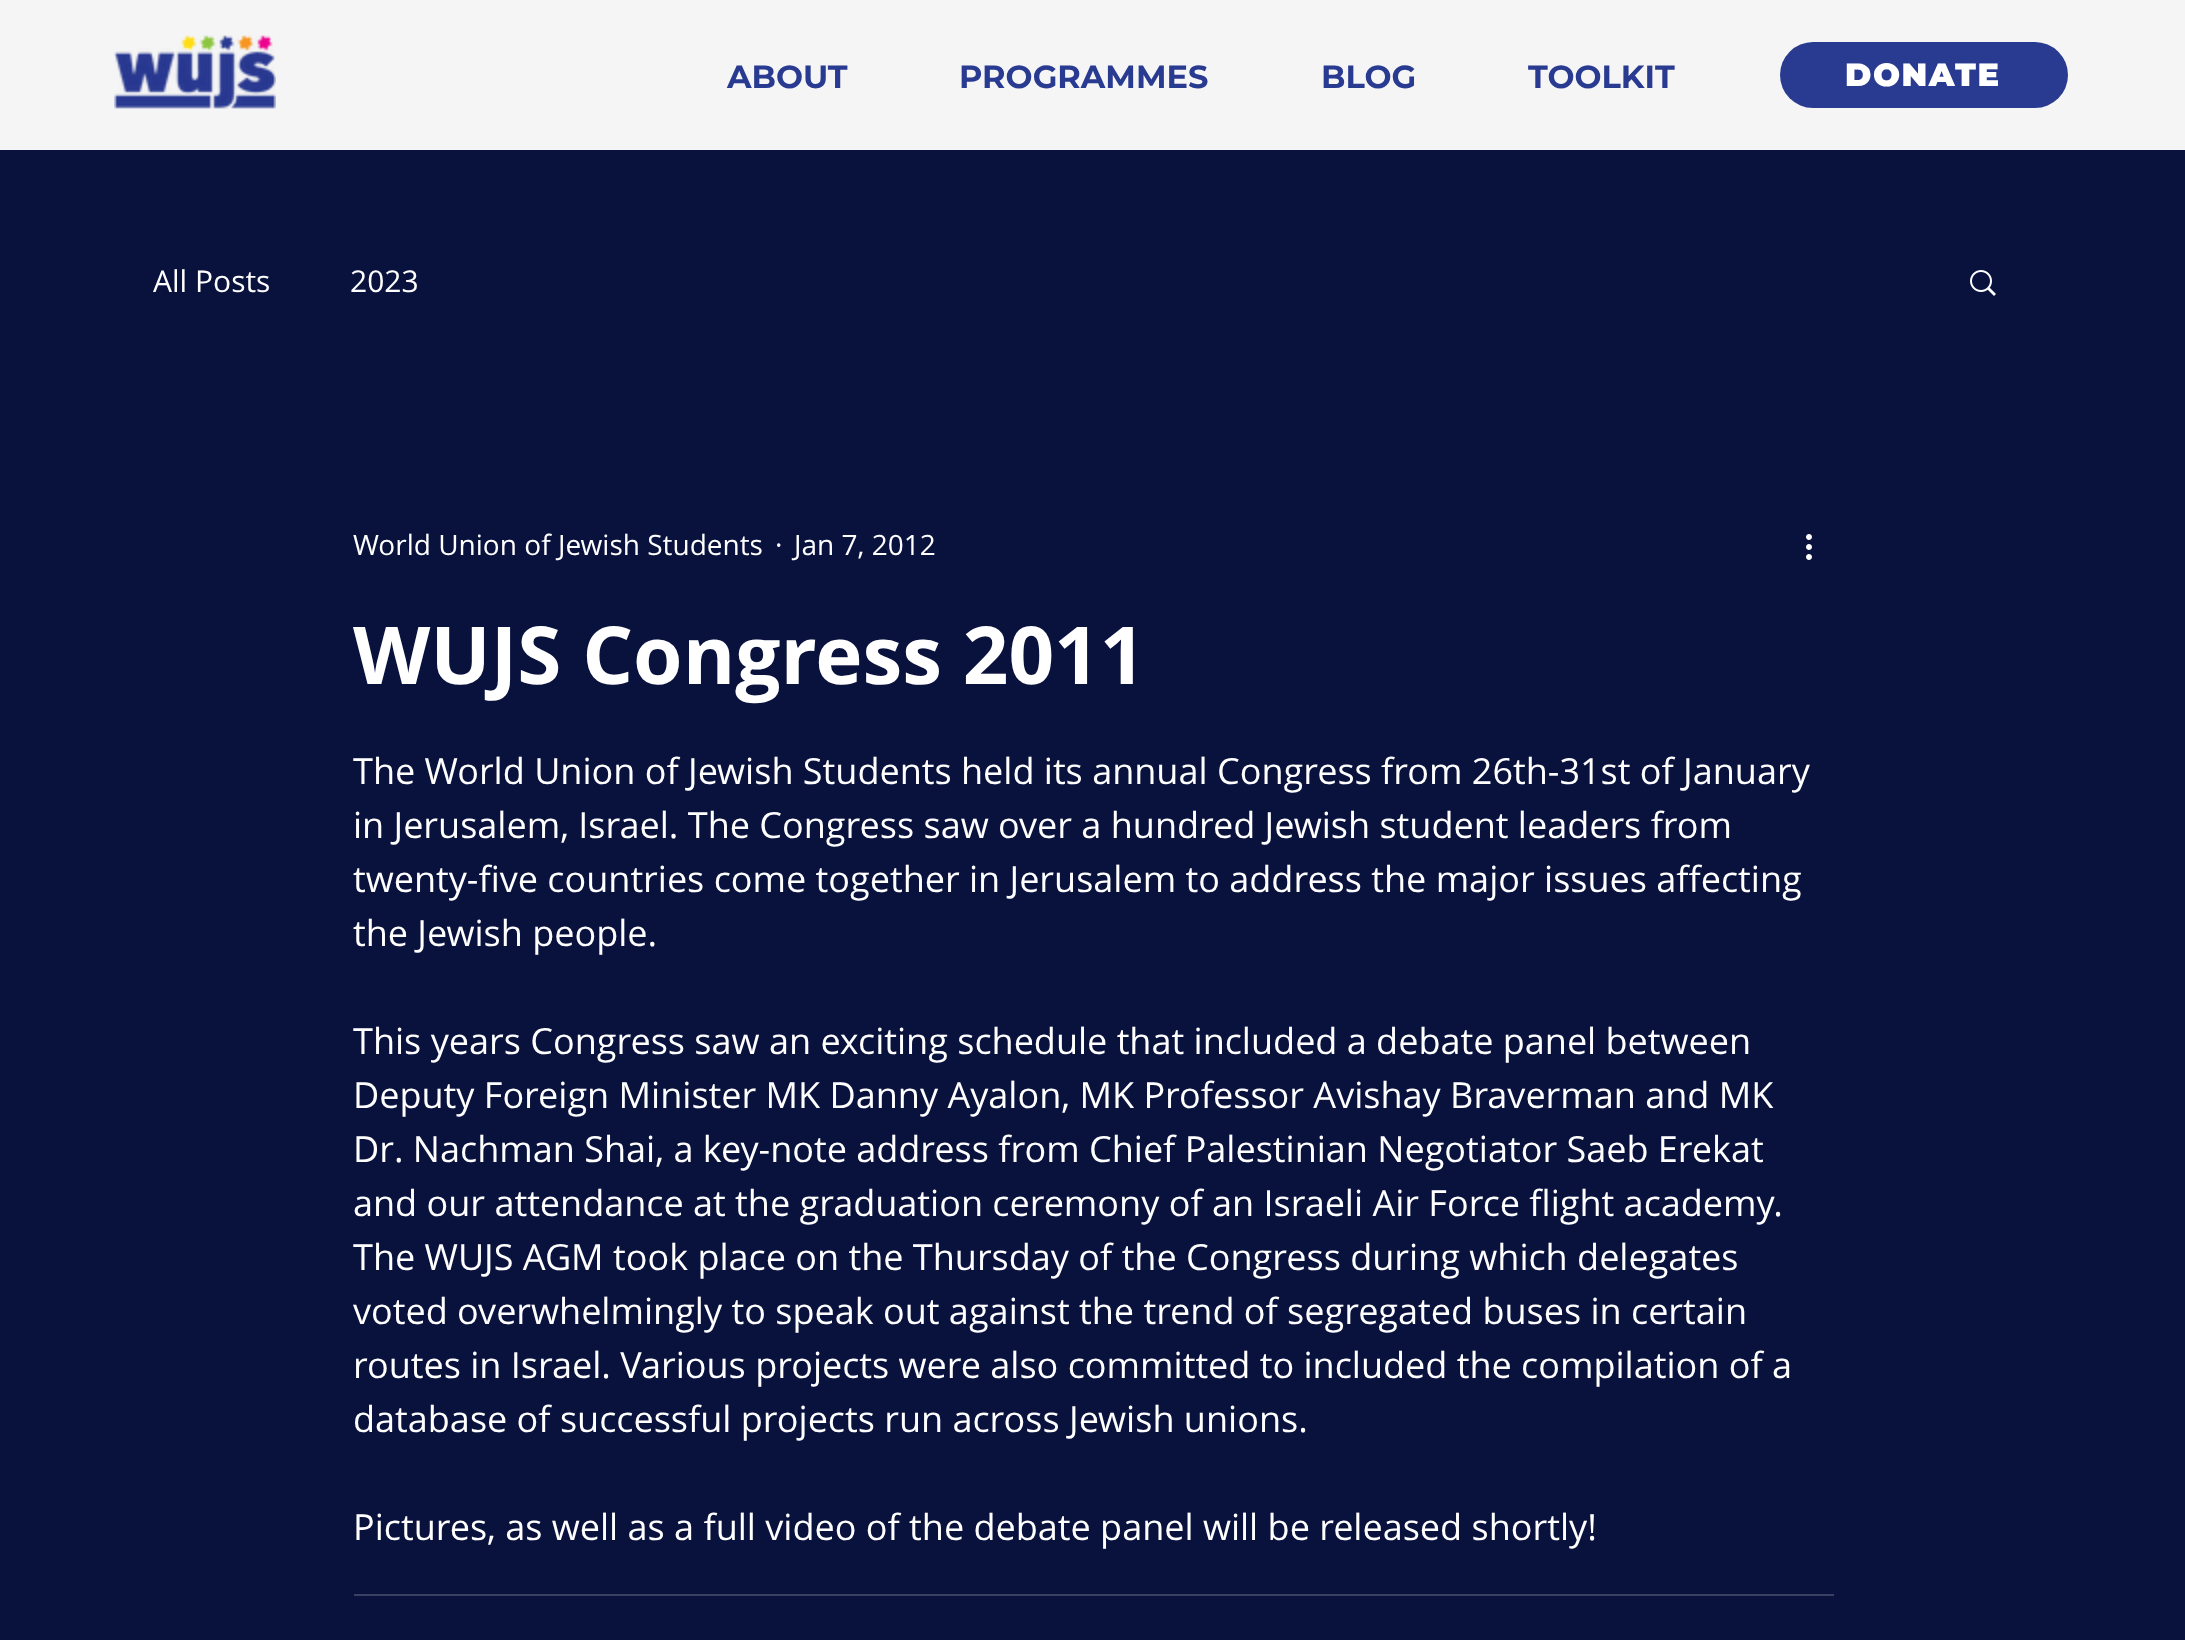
<!DOCTYPE html>
<meta charset="utf-8">
<style>body { margin: 0 } canvas { display: block }</style>
<canvas id="canvas" width="2185" height="1640"></canvas>
<img id="img1" src="img_01.png" hidden>
<img id="img2" src="img_02.png" hidden>
<img id="img3" src="img_03.png" hidden>
<script>
window.onload = function () {
	const canvas = document.getElementById("canvas");
	const ctx = canvas.getContext("2d");
	ctx.miterLimit = 4;
	ctx.fontKerning = "normal";
	function txt(s, x, y) {
		ctx.fillText(s, x, y);
	}
	function fill(x, y, w, h) {
		ctx.fillRect(x, y, w, h);
	}
	function round(x, y, w, h, r) {
		ctx.beginPath();
		ctx.roundRect(x, y, w, h, r);
		ctx.fill();
	}
	function img(id, x, y, w, h) {
		ctx.drawImage(document.getElementById(id), x, y, w, h);
	}

	ctx.fillStyle = "#09113D";
	fill(0, 0, 2185, 1640);
	ctx.fillStyle = "#F5F5F5";
	fill(0, 0, 2185, 150);
	img("img1", 114, 35, 162, 74);
	ctx.fillStyle = "#293A91";
	round(1780, 42, 288, 66, 33);
	img("img2", 1970, 270, 26, 26);
	img("img3", 1806, 534, 6, 26);
	ctx.fillStyle = "#3A4164";
	fill(354, 1594, 1480, 2);
	ctx.font = "bold 32px Montserrat";
	ctx.fillStyle = "#293A91";
	txt("ABOUT", 727, 88);
	txt("PROGRAMMES", 959, 88);
	txt("BLOG", 1321, 88);
	txt("TOOLKIT", 1528, 88);
	ctx.letterSpacing = "1.5px";
	ctx.font = "100 32px Montserrat";
	ctx.fillStyle = "#FFFFFF";
	txt("DONATE", 1845, 86);
	ctx.letterSpacing = "0px";
	ctx.font = "30px Open Sans";
	txt("All Posts", 153, 292);
	txt("2023", 350, 292);
	ctx.font = "28px Open Sans";
	txt("World Union of Jewish Students", 353, 555);
	txt("·", 775, 555);
	txt("Jan 7, 2012", 794, 555);
	ctx.font = "bold 80px Open Sans";
	txt("WUJS Congress 2011", 353, 684);
	ctx.font = "36px Open Sans";
	txt("The World Union of Jewish Students held its annual Congress from 26th-31st of January", 353, 784);
	txt("in Jerusalem, Israel. The Congress saw over a hundred Jewish student leaders from", 353, 838);
	txt("twenty-five countries come together in Jerusalem to address the major issues affecting", 353, 892);
	txt("the Jewish people.", 353, 946);
	txt("This years Congress saw an exciting schedule that included a debate panel between", 353, 1054);
	txt("Deputy Foreign Minister MK Danny Ayalon, MK Professor Avishay Braverman and MK", 353, 1108);
	txt("Dr. Nachman Shai, a key-note address from Chief Palestinian Negotiator Saeb Erekat", 353, 1162);
	txt("and our attendance at the graduation ceremony of an Israeli Air Force flight academy.", 353, 1216);
	txt("The WUJS AGM took place on the Thursday of the Congress during which delegates", 353, 1270);
	txt("voted overwhelmingly to speak out against the trend of segregated buses in certain", 353, 1324);
	txt("routes in Israel. Various projects were also committed to included the compilation of a", 353, 1378);
	txt("database of successful projects run across Jewish unions.", 353, 1432);
	txt("Pictures, as well as a full video of the debate panel will be released shortly!", 353, 1540);
};
</script>
